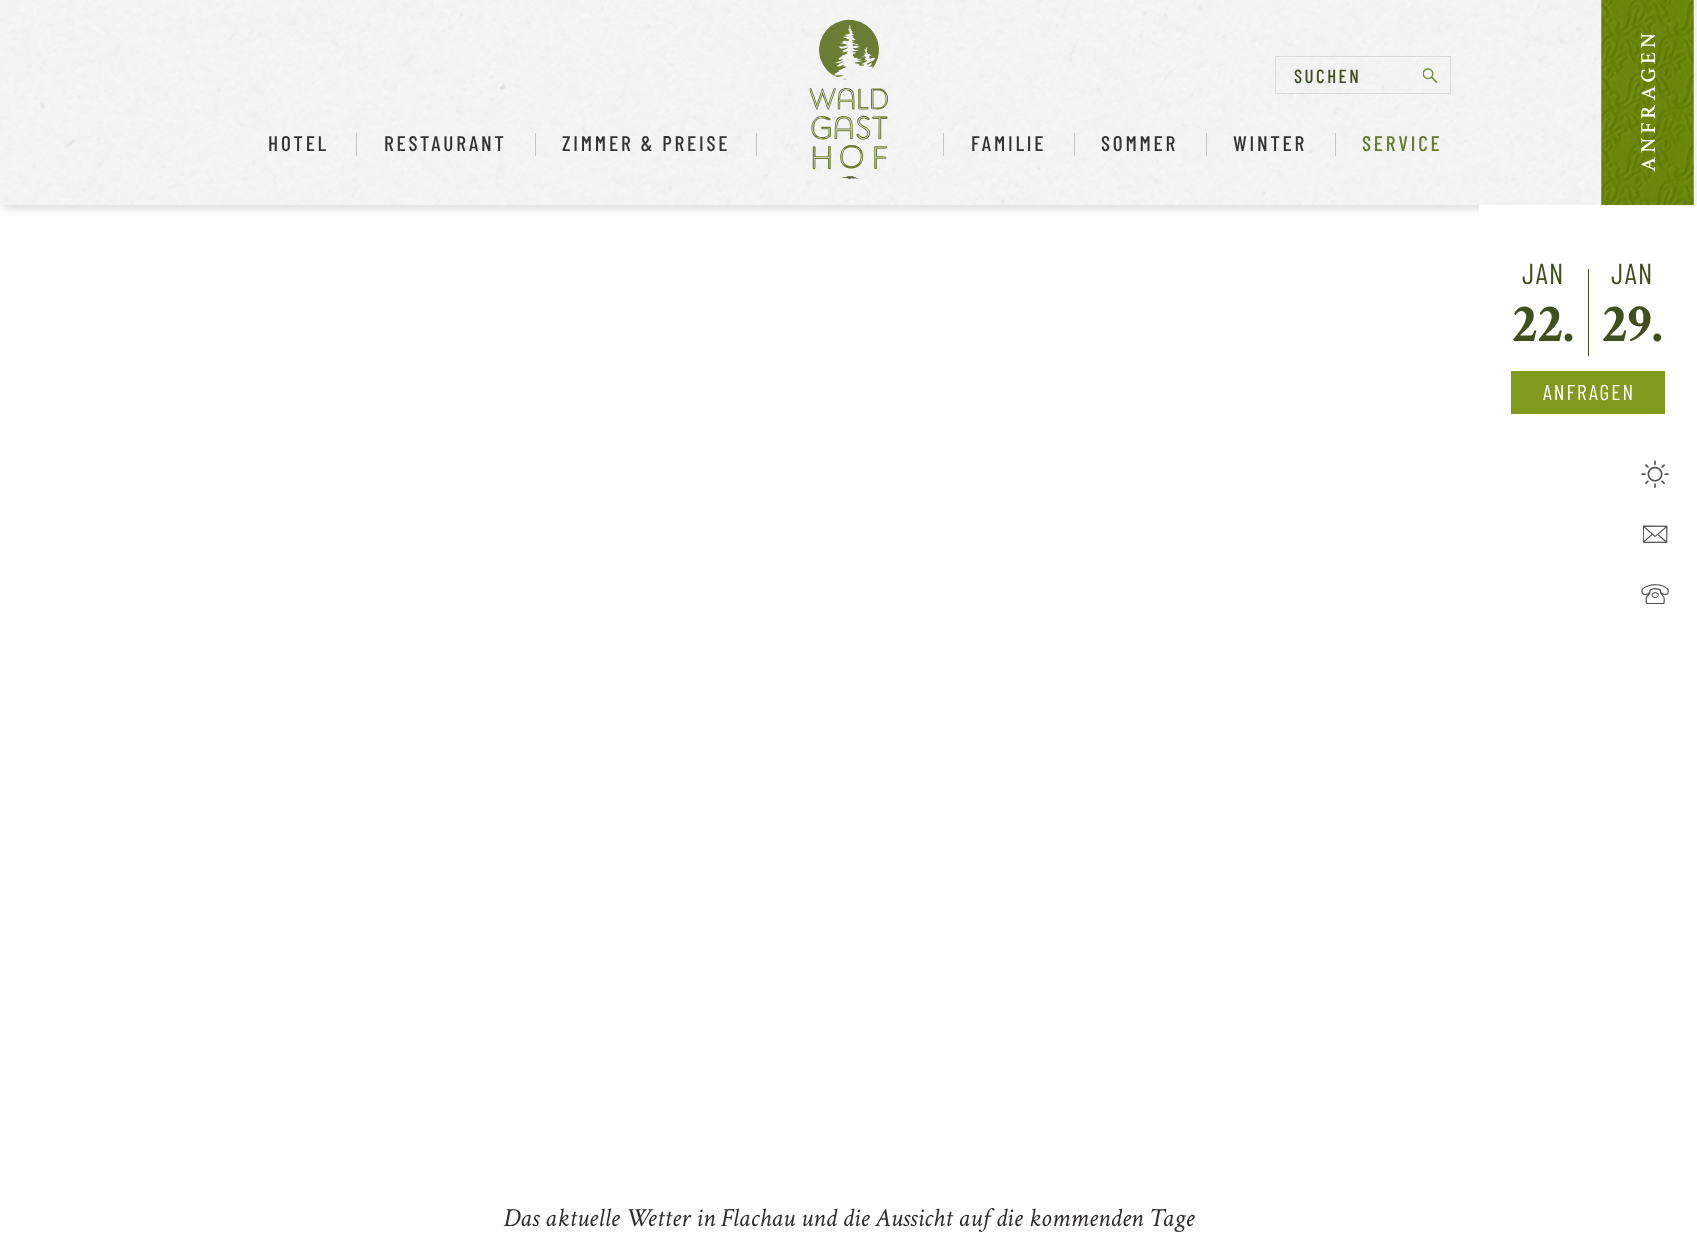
<!DOCTYPE html>
<meta charset="utf-8">
<style>body { margin: 0 } canvas { display: block }</style>
<canvas id="canvas" width="1697" height="1259"></canvas>
<img id="img1" src="img_01.png" hidden>
<img id="img2" src="img_02.png" hidden>
<img id="img3" src="img_03.png" hidden>
<img id="img4" src="img_04.png" hidden>
<img id="img5" src="img_05.png" hidden>
<img id="img6" src="img_06.png" hidden>
<img id="img7" src="img_07.png" hidden>
<script>
window.onload = function () {
	const canvas = document.getElementById("canvas");
	const ctx = canvas.getContext("2d");
	ctx.miterLimit = 4;
	ctx.fontKerning = "normal";
	function txt(s, x, y) {
		ctx.fillText(s, x, y);
	}
	function fill(x, y, w, h) {
		ctx.fillRect(x, y, w, h);
	}
	function img(id, x, y, w, h) {
		ctx.drawImage(document.getElementById(id), x, y, w, h);
	}

	ctx.fillStyle = "#FFFFFF";
	fill(0, 0, 1697, 1259);
	ctx.fillStyle = "rgba(0, 0, 0, 0.15)";
	ctx.filter = "blur(5px)";
	ctx.beginPath();
	ctx.rect(3, 3, 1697, 205);
	ctx.fill();
	ctx.filter = "none";
	img("img1", 0, 0, 1697, 205);
	img("img2", 809, 19, 79, 160);
	ctx.strokeStyle = "#DCD9D6";
	ctx.strokeRect(1275.5, 56.5, 175, 37);
	img("img3", 1423, 68, 15, 15);
	img("img4", 1601, 0, 93, 205);
	ctx.fillStyle = "#FFFFFF";
	fill(1479, 205, 218, 10);
	ctx.fillStyle = "#414E1D";
	fill(1588, 269, 1, 87);
	ctx.fillStyle = "#819A1D";
	fill(1511, 371, 154, 43);
	ctx.fillStyle = "#C6C6C6";
	fill(356, 133, 1, 23);
	fill(535, 133, 1, 23);
	fill(756, 133, 1, 23);
	fill(943, 133, 1, 23);
	fill(1074, 133, 1, 23);
	fill(1206, 133, 1, 23);
	fill(1335, 133, 1, 23);
	img("img5", 1641, 460, 28, 28);
	img("img6", 1643, 525, 25, 18);
	img("img7", 1641, 584, 28, 20);
	ctx.letterSpacing = "2.5px";
	ctx.font = "500 19px Barlow Condensed";
	ctx.fillStyle = "#414E1D";
	txt("SUCHEN", 1294, 83);
	ctx.letterSpacing = "3.75px";
	ctx.font = "600 21.25px Crimson Text";
	ctx.fillStyle = "#FFFFFF";
	ctx.save();
	ctx.translate(1655, 172);
	ctx.rotate(-90 * Math.PI / 180);
	ctx.fillText("ANFRAGEN", 0, 0);
	ctx.restore();
	ctx.letterSpacing = "1.5px";
	ctx.font = "29px Barlow Condensed";
	ctx.fillStyle = "#414E1D";
	txt("JAN", 1522, 284);
	ctx.letterSpacing = "0px";
	ctx.font = "bold 55px Crimson Text";
	txt("22.", 1512, 341);
	ctx.letterSpacing = "1.5px";
	ctx.font = "29px Barlow Condensed";
	txt("JAN", 1611, 284);
	ctx.letterSpacing = "0px";
	ctx.font = "bold 55px Crimson Text";
	txt("29.", 1602, 341);
	ctx.letterSpacing = "2px";
	ctx.font = "21.5px Barlow Condensed";
	ctx.fillStyle = "#FFFFFF";
	txt("ANFRAGEN", 1543, 400);
	ctx.letterSpacing = "2.8px";
	ctx.font = "500 21.25px Barlow Condensed";
	ctx.fillStyle = "#333333";
	txt("HOTEL", 268, 151);
	txt("RESTAURANT", 384, 151);
	txt("ZIMMER & PREISE", 562, 151);
	txt("FAMILIE", 971, 151);
	txt("SOMMER", 1101, 151);
	txt("WINTER", 1233, 151);
	ctx.fillStyle = "#637C29";
	txt("SERVICE", 1362, 151);
	ctx.letterSpacing = "0px";
	ctx.font = "italic 26.25px Crimson Text";
	ctx.fillStyle = "#312C2C";
	txt("Das aktuelle Wetter in Flachau und die Aussicht auf die kommenden Tage", 503, 1226);
};
</script>
